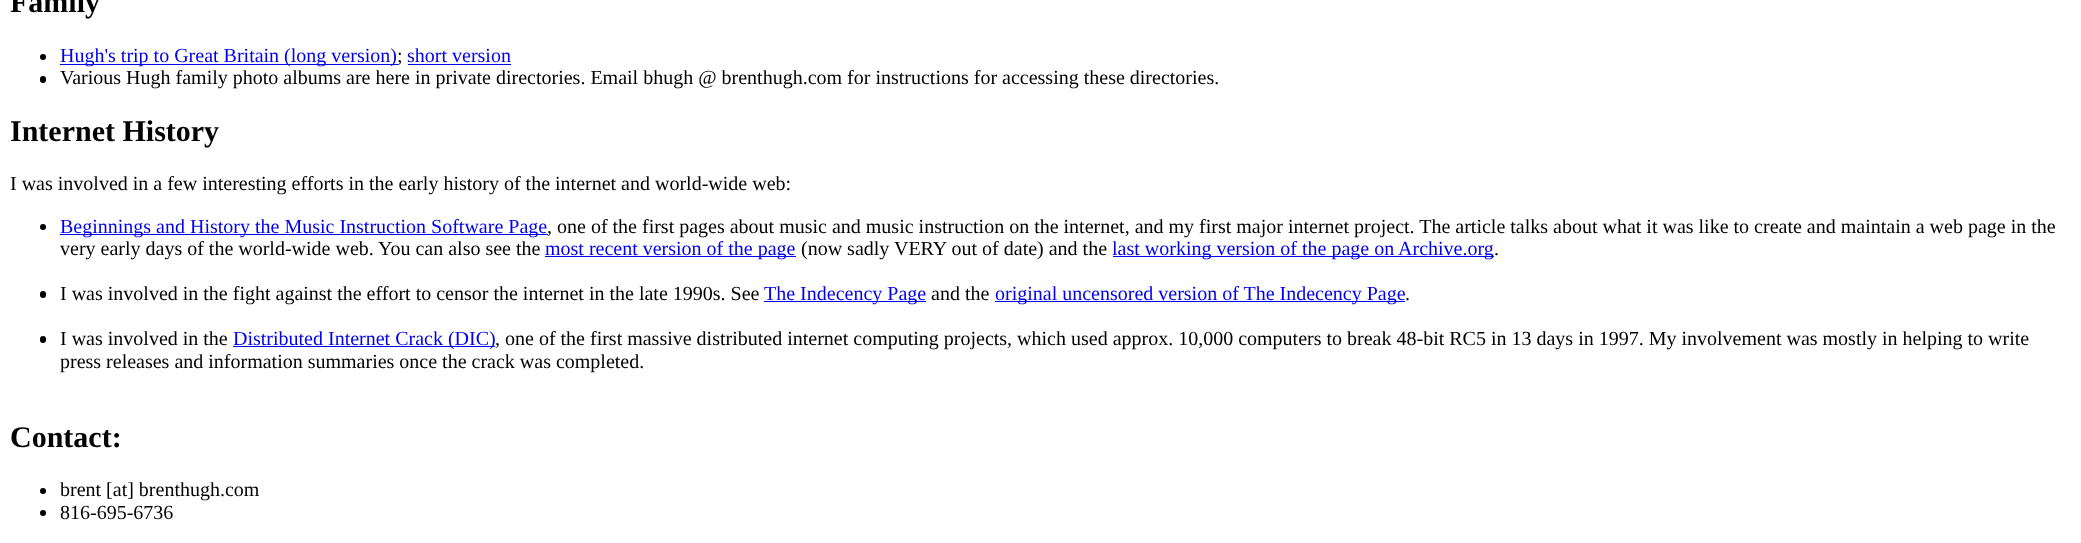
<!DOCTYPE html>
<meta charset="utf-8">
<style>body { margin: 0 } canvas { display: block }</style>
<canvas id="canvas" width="2081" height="543"></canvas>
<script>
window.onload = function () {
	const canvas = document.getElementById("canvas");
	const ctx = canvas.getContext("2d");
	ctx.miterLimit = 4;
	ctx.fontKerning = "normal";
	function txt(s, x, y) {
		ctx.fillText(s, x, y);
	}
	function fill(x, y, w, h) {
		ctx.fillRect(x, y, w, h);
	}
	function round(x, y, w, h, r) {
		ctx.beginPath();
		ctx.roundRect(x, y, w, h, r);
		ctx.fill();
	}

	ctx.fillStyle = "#FFFFFF";
	fill(0, 0, 2081, 543);
	ctx.fillStyle = "#000000";
	ctx.beginPath();
	ctx.arc(43, 57, 3, 0, Math.PI * 2);
	ctx.fill();
	ctx.fillStyle = "#0000EE";
	fill(60, 64, 338, 1);
	fill(408, 64, 103, 1);
	ctx.fillStyle = "#000000";
	round(40, 76, 6, 7, 3);
	ctx.beginPath();
	ctx.arc(43, 227, 3, 0, Math.PI * 2);
	ctx.fill();
	ctx.fillStyle = "#0000EE";
	fill(60, 234, 488, 1);
	fill(545, 256, 251, 1);
	fill(1113, 256, 381, 1);
	ctx.fillStyle = "#000000";
	round(40, 291, 6, 7, 3);
	ctx.fillStyle = "#0000EE";
	fill(764, 301, 162, 1);
	fill(995, 301, 410, 1);
	ctx.fillStyle = "#000000";
	round(40, 336, 6, 7, 3);
	ctx.fillStyle = "#0000EE";
	fill(233, 346, 262, 1);
	ctx.fillStyle = "#000000";
	ctx.beginPath();
	ctx.arc(43, 491, 3, 0, Math.PI * 2);
	ctx.fill();
	ctx.beginPath();
	ctx.arc(43, 513, 3, 0, Math.PI * 2);
	ctx.fill();
	ctx.font = "bold 30px Liberation Serif";
	txt("Family", 10, 12);
	ctx.font = "20px Liberation Serif";
	ctx.fillStyle = "#0000EE";
	txt("Hugh's trip to Great Britain (long version)", 60, 62);
	ctx.fillStyle = "#000000";
	txt(";", 397, 62);
	ctx.fillStyle = "#0000EE";
	txt("short version", 407, 62);
	ctx.fillStyle = "#000000";
	txt("Various Hugh family photo albums are here in private directories. Email bhugh @ brenthugh.com for instructions for accessing these directories.", 60, 84);
	ctx.font = "bold 30px Liberation Serif";
	txt("Internet History", 10, 141);
	ctx.font = "20px Liberation Serif";
	txt("I was involved in a few interesting efforts in the early history of the internet and world-wide web:", 10, 190);
	ctx.fillStyle = "#0000EE";
	txt("Beginnings and History the Music Instruction Software Page", 60, 233);
	ctx.fillStyle = "#000000";
	txt(", one of the first pages about music and music instruction on the internet, and my first major internet project. The article talks about what it was like to create and maintain a web page in the", 547, 233);
	txt("very early days of the world-wide web. You can also see the", 60, 255);
	ctx.fillStyle = "#0000EE";
	txt("most recent version of the page", 545, 255);
	ctx.fillStyle = "#000000";
	txt("(now sadly VERY out of date) and the", 801, 255);
	ctx.fillStyle = "#0000EE";
	txt("last working version of the page on Archive.org", 1112, 255);
	ctx.fillStyle = "#000000";
	txt(".", 1494, 255);
	txt("I was involved in the fight against the effort to censor the internet in the late 1990s. See", 60, 300);
	ctx.fillStyle = "#0000EE";
	txt("The Indecency Page", 764, 300);
	ctx.fillStyle = "#000000";
	txt("and the", 931, 300);
	ctx.fillStyle = "#0000EE";
	txt("original uncensored version of The Indecency Page", 995, 300);
	ctx.fillStyle = "#000000";
	txt(".", 1405, 300);
	txt("I was involved in the", 60, 345);
	ctx.fillStyle = "#0000EE";
	txt("Distributed Internet Crack (DIC)", 233, 345);
	ctx.fillStyle = "#000000";
	txt(", one of the first massive distributed internet computing projects, which used approx. 10,000 computers to break 48-bit RC5 in 13 days in 1997. My involvement was mostly in helping to write", 495, 345);
	txt("press releases and information summaries once the crack was completed.", 60, 368);
	ctx.font = "bold 30px Liberation Serif";
	txt("Contact:", 10, 447);
	ctx.font = "20px Liberation Serif";
	txt("brent [at] brenthugh.com", 60, 496);
	txt("816-695-6736", 60, 519);
};
</script>
